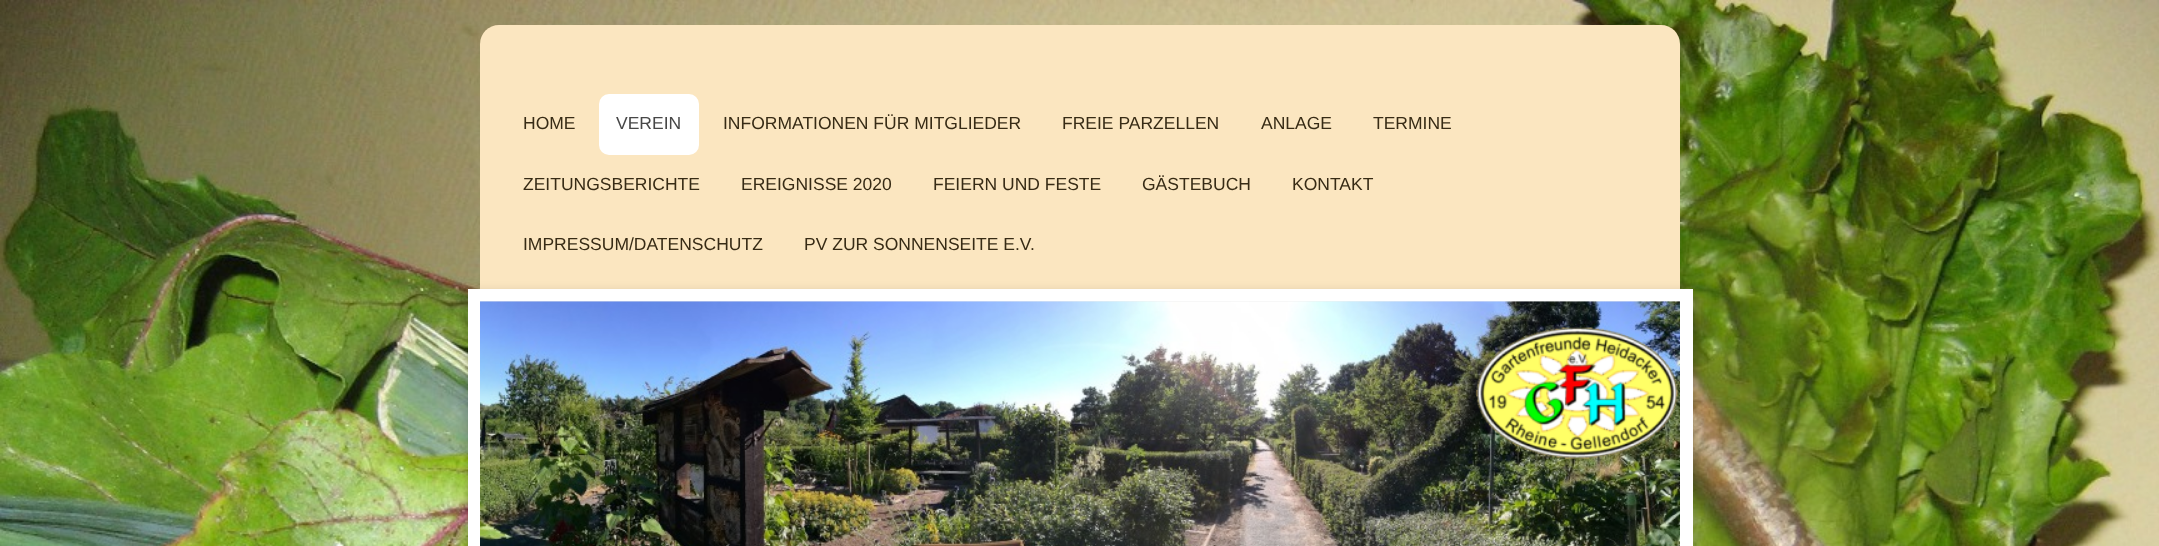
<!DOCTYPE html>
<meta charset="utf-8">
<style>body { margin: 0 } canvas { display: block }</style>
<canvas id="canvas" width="2159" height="546"></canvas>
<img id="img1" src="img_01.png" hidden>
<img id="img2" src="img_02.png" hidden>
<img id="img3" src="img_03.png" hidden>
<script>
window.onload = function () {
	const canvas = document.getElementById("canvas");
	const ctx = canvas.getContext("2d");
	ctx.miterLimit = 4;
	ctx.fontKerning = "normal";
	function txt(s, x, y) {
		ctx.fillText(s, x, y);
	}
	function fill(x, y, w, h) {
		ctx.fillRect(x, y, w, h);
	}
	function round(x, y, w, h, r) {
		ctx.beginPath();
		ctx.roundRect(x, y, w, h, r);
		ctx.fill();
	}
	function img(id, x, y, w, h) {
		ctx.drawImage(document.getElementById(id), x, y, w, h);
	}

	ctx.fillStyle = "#FFFFFF";
	fill(0, 0, 2159, 546);
	img("img1", 0, 0, 2159, 546);
	ctx.fillStyle = "#FBE6C0";
	round(480, 25, 1200, 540, 19);
	ctx.fillStyle = "#FFFFFF";
	round(599, 94, 100, 61, 10);
	ctx.fillStyle = "rgba(0, 0, 0, 0.2)";
	ctx.filter = "blur(6px)";
	ctx.beginPath();
	ctx.rect(468, 293, 1225, 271);
	ctx.fill();
	ctx.filter = "none";
	ctx.strokeStyle = "#FFFFFF";
	ctx.lineWidth = 13;
	ctx.strokeRect(474.5, 295.5, 1212, 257);
	ctx.fillStyle = "#EEEEEE";
	fill(480, 301, 1200, 1);
	img("img2", 480, 301, 1200, 245);
	img("img3", 1475, 327, 204, 133);
	ctx.font = "17.5px Liberation Sans";
	ctx.fillStyle = "#372B15";
	txt("HOME", 523, 129);
	ctx.fillStyle = "#474747";
	txt("VEREIN", 616, 129);
	ctx.fillStyle = "#372B15";
	txt("INFORMATIONEN FÜR MITGLIEDER", 723, 129);
	txt("FREIE PARZELLEN", 1062, 129);
	txt("ANLAGE", 1261, 129);
	txt("TERMINE", 1373, 129);
	txt("ZEITUNGSBERICHTE", 523, 190);
	txt("EREIGNISSE 2020", 741, 190);
	txt("FEIERN UND FESTE", 933, 190);
	txt("GÄSTEBUCH", 1142, 190);
	txt("KONTAKT", 1292, 190);
	txt("IMPRESSUM/DATENSCHUTZ", 523, 250);
	txt("PV ZUR SONNENSEITE E.V.", 804, 250);
};
</script>
